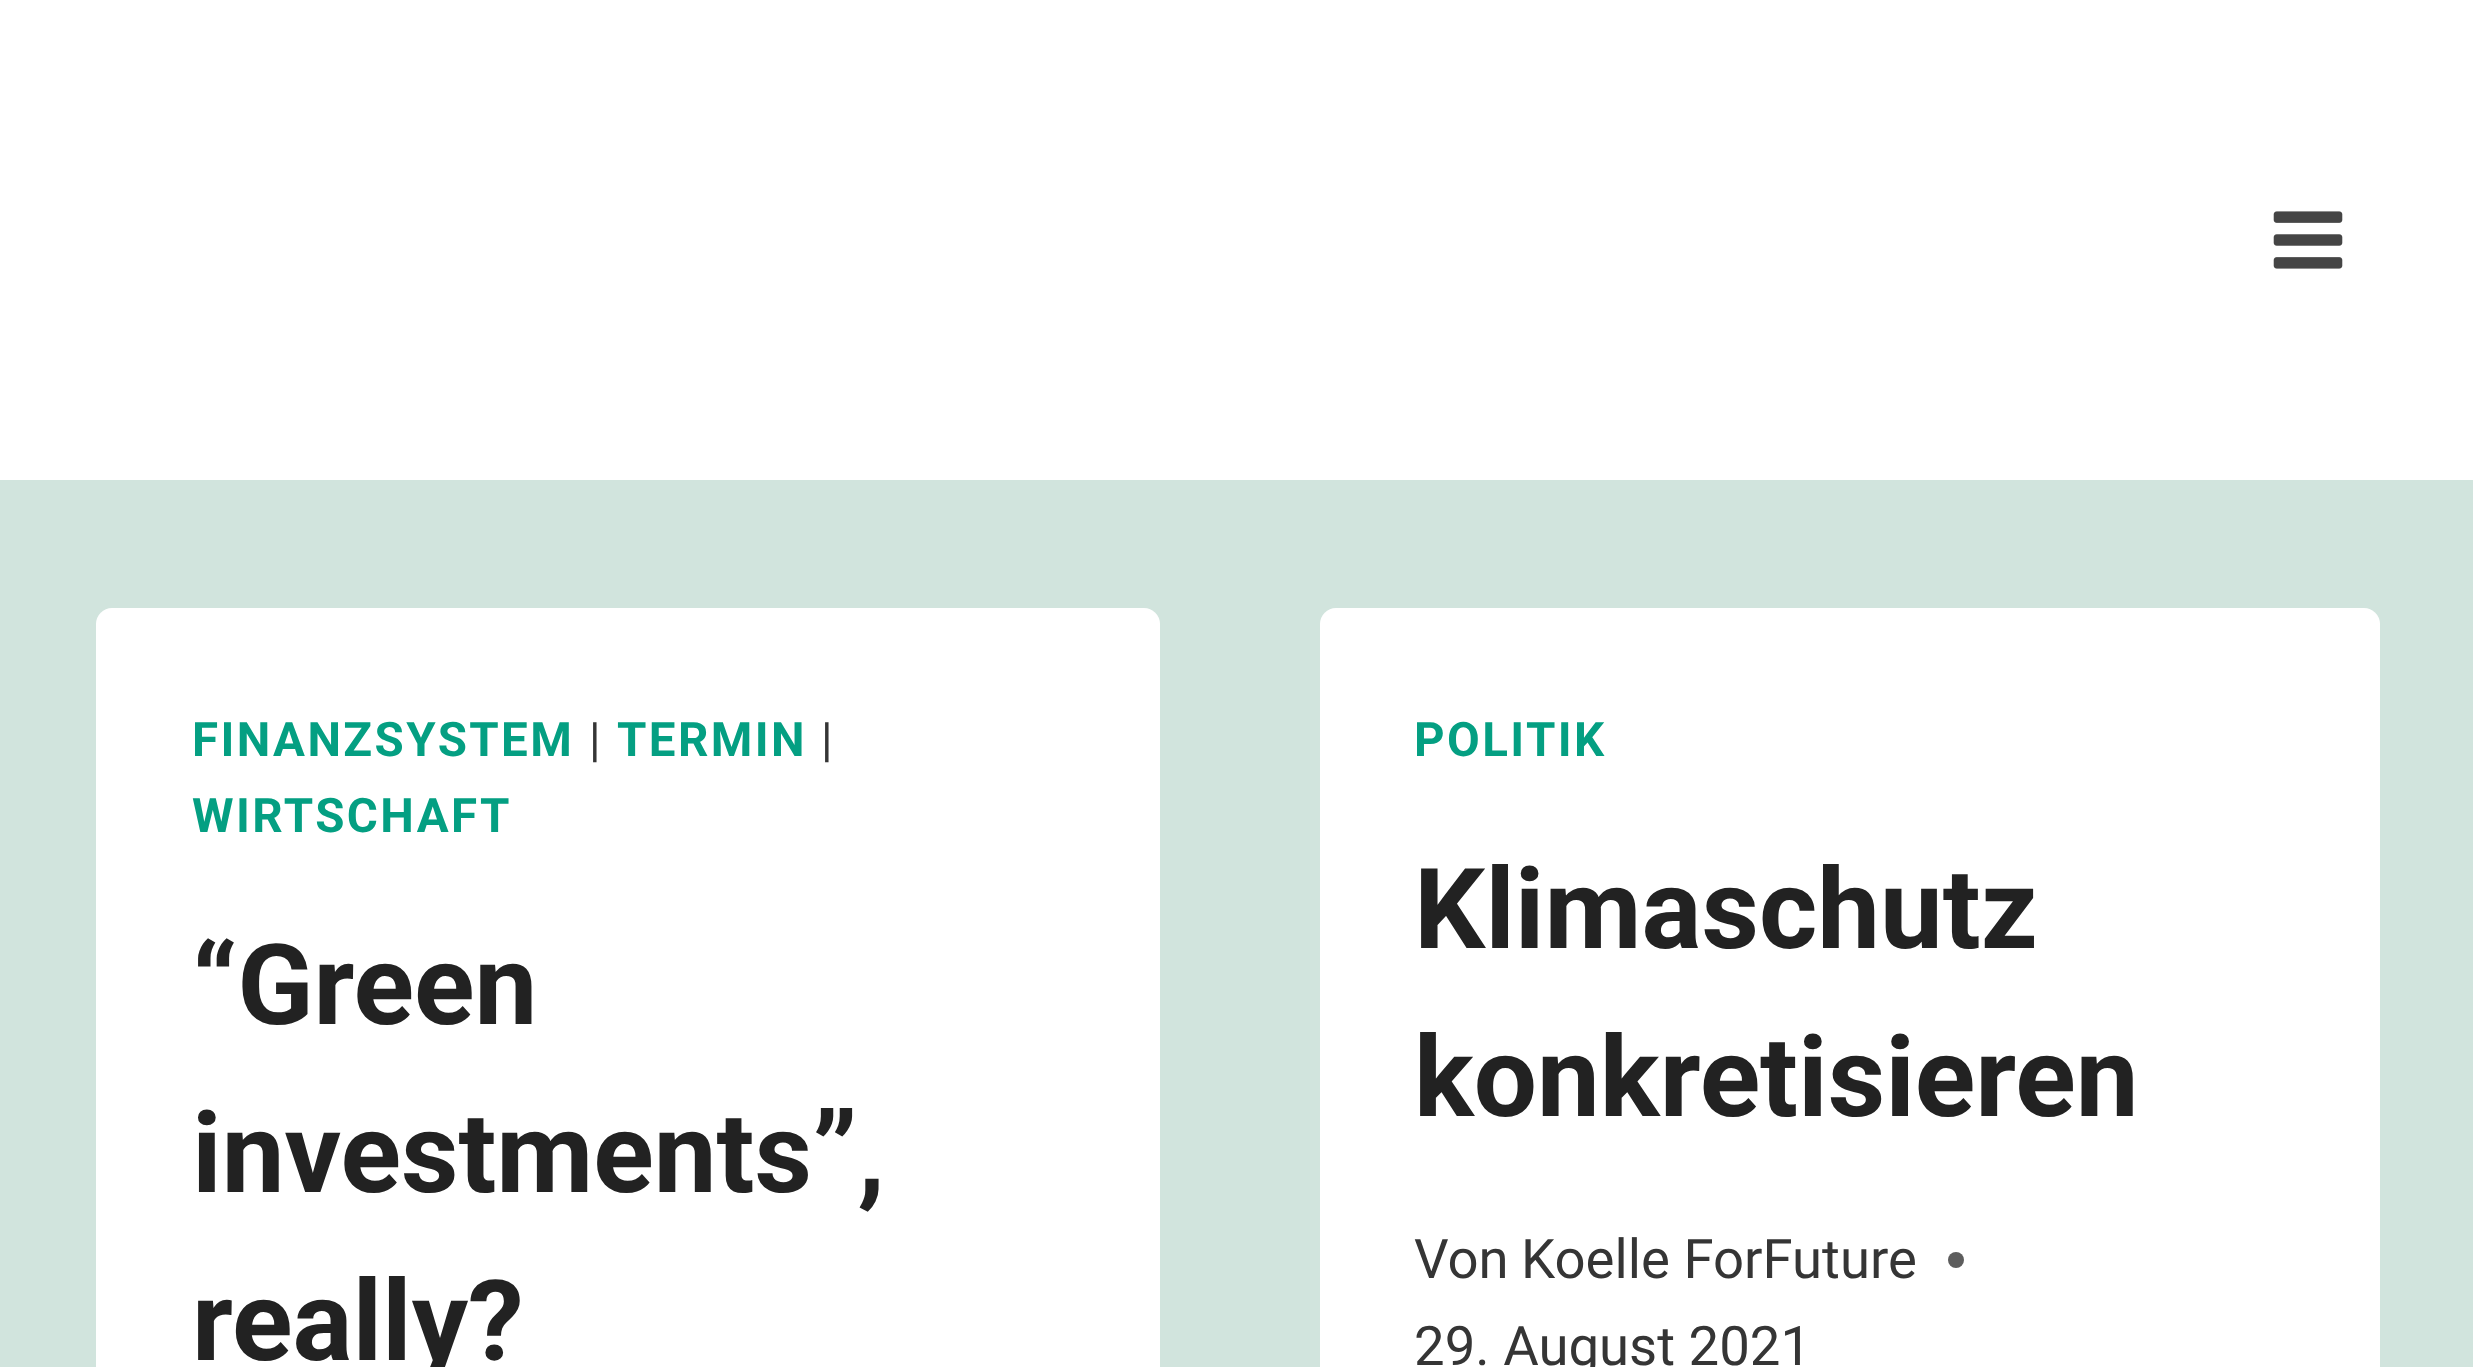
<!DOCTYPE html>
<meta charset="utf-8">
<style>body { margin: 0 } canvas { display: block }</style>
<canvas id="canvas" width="2473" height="1367"></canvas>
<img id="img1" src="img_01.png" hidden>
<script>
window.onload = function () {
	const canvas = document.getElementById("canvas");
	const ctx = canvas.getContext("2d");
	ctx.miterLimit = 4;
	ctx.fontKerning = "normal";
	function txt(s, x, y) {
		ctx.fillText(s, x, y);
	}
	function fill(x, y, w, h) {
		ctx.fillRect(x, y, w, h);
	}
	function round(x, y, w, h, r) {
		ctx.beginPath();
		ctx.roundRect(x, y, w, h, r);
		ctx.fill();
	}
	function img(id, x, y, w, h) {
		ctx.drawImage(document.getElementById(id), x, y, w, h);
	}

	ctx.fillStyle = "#D1E4DD";
	fill(0, 0, 2473, 1367);
	ctx.fillStyle = "#FFFFFF";
	fill(0, 0, 2473, 480);
	img("img1", 2273, 211, 70, 58);
	round(96, 608, 1064, 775, 16);
	round(1320, 608, 1060, 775, 16);
	ctx.fillStyle = "#5D5D5D";
	ctx.beginPath();
	ctx.arc(1956, 1260, 8, 0, Math.PI * 2);
	ctx.fill();
	ctx.letterSpacing = "2.4px";
	ctx.font = "bold 47.5px Roboto";
	ctx.fillStyle = "#049F82";
	txt("FINANZSYSTEM", 192, 756);
	ctx.font = "47.5px Roboto";
	ctx.fillStyle = "#353535";
	txt("|", 589, 756);
	ctx.font = "bold 47.5px Roboto";
	ctx.fillStyle = "#049F82";
	txt("TERMIN", 617, 756);
	ctx.font = "47.5px Roboto";
	ctx.fillStyle = "#353535";
	txt("|", 821, 756);
	ctx.font = "bold 47.5px Roboto";
	ctx.fillStyle = "#049F82";
	txt("WIRTSCHAFT", 192, 832);
	ctx.letterSpacing = "0px";
	ctx.font = "bold 112px Roboto";
	ctx.fillStyle = "#222222";
	txt("“Green", 192, 1024);
	txt("investments”,", 192, 1192);
	txt("really?", 192, 1360);
	ctx.letterSpacing = "2.4px";
	ctx.font = "bold 47.5px Roboto";
	ctx.fillStyle = "#049F82";
	txt("POLITIK", 1414, 756);
	ctx.letterSpacing = "0px";
	ctx.font = "bold 112px Roboto";
	ctx.fillStyle = "#222222";
	txt("Klimaschutz", 1414, 948);
	txt("konkretisieren", 1414, 1116);
	ctx.font = "54.5px Roboto";
	ctx.fillStyle = "#353535";
	txt("Von", 1414, 1278);
	txt("Koelle ForFuture", 1521, 1278);
	txt("29. August 2021", 1414, 1365);
};
</script>
